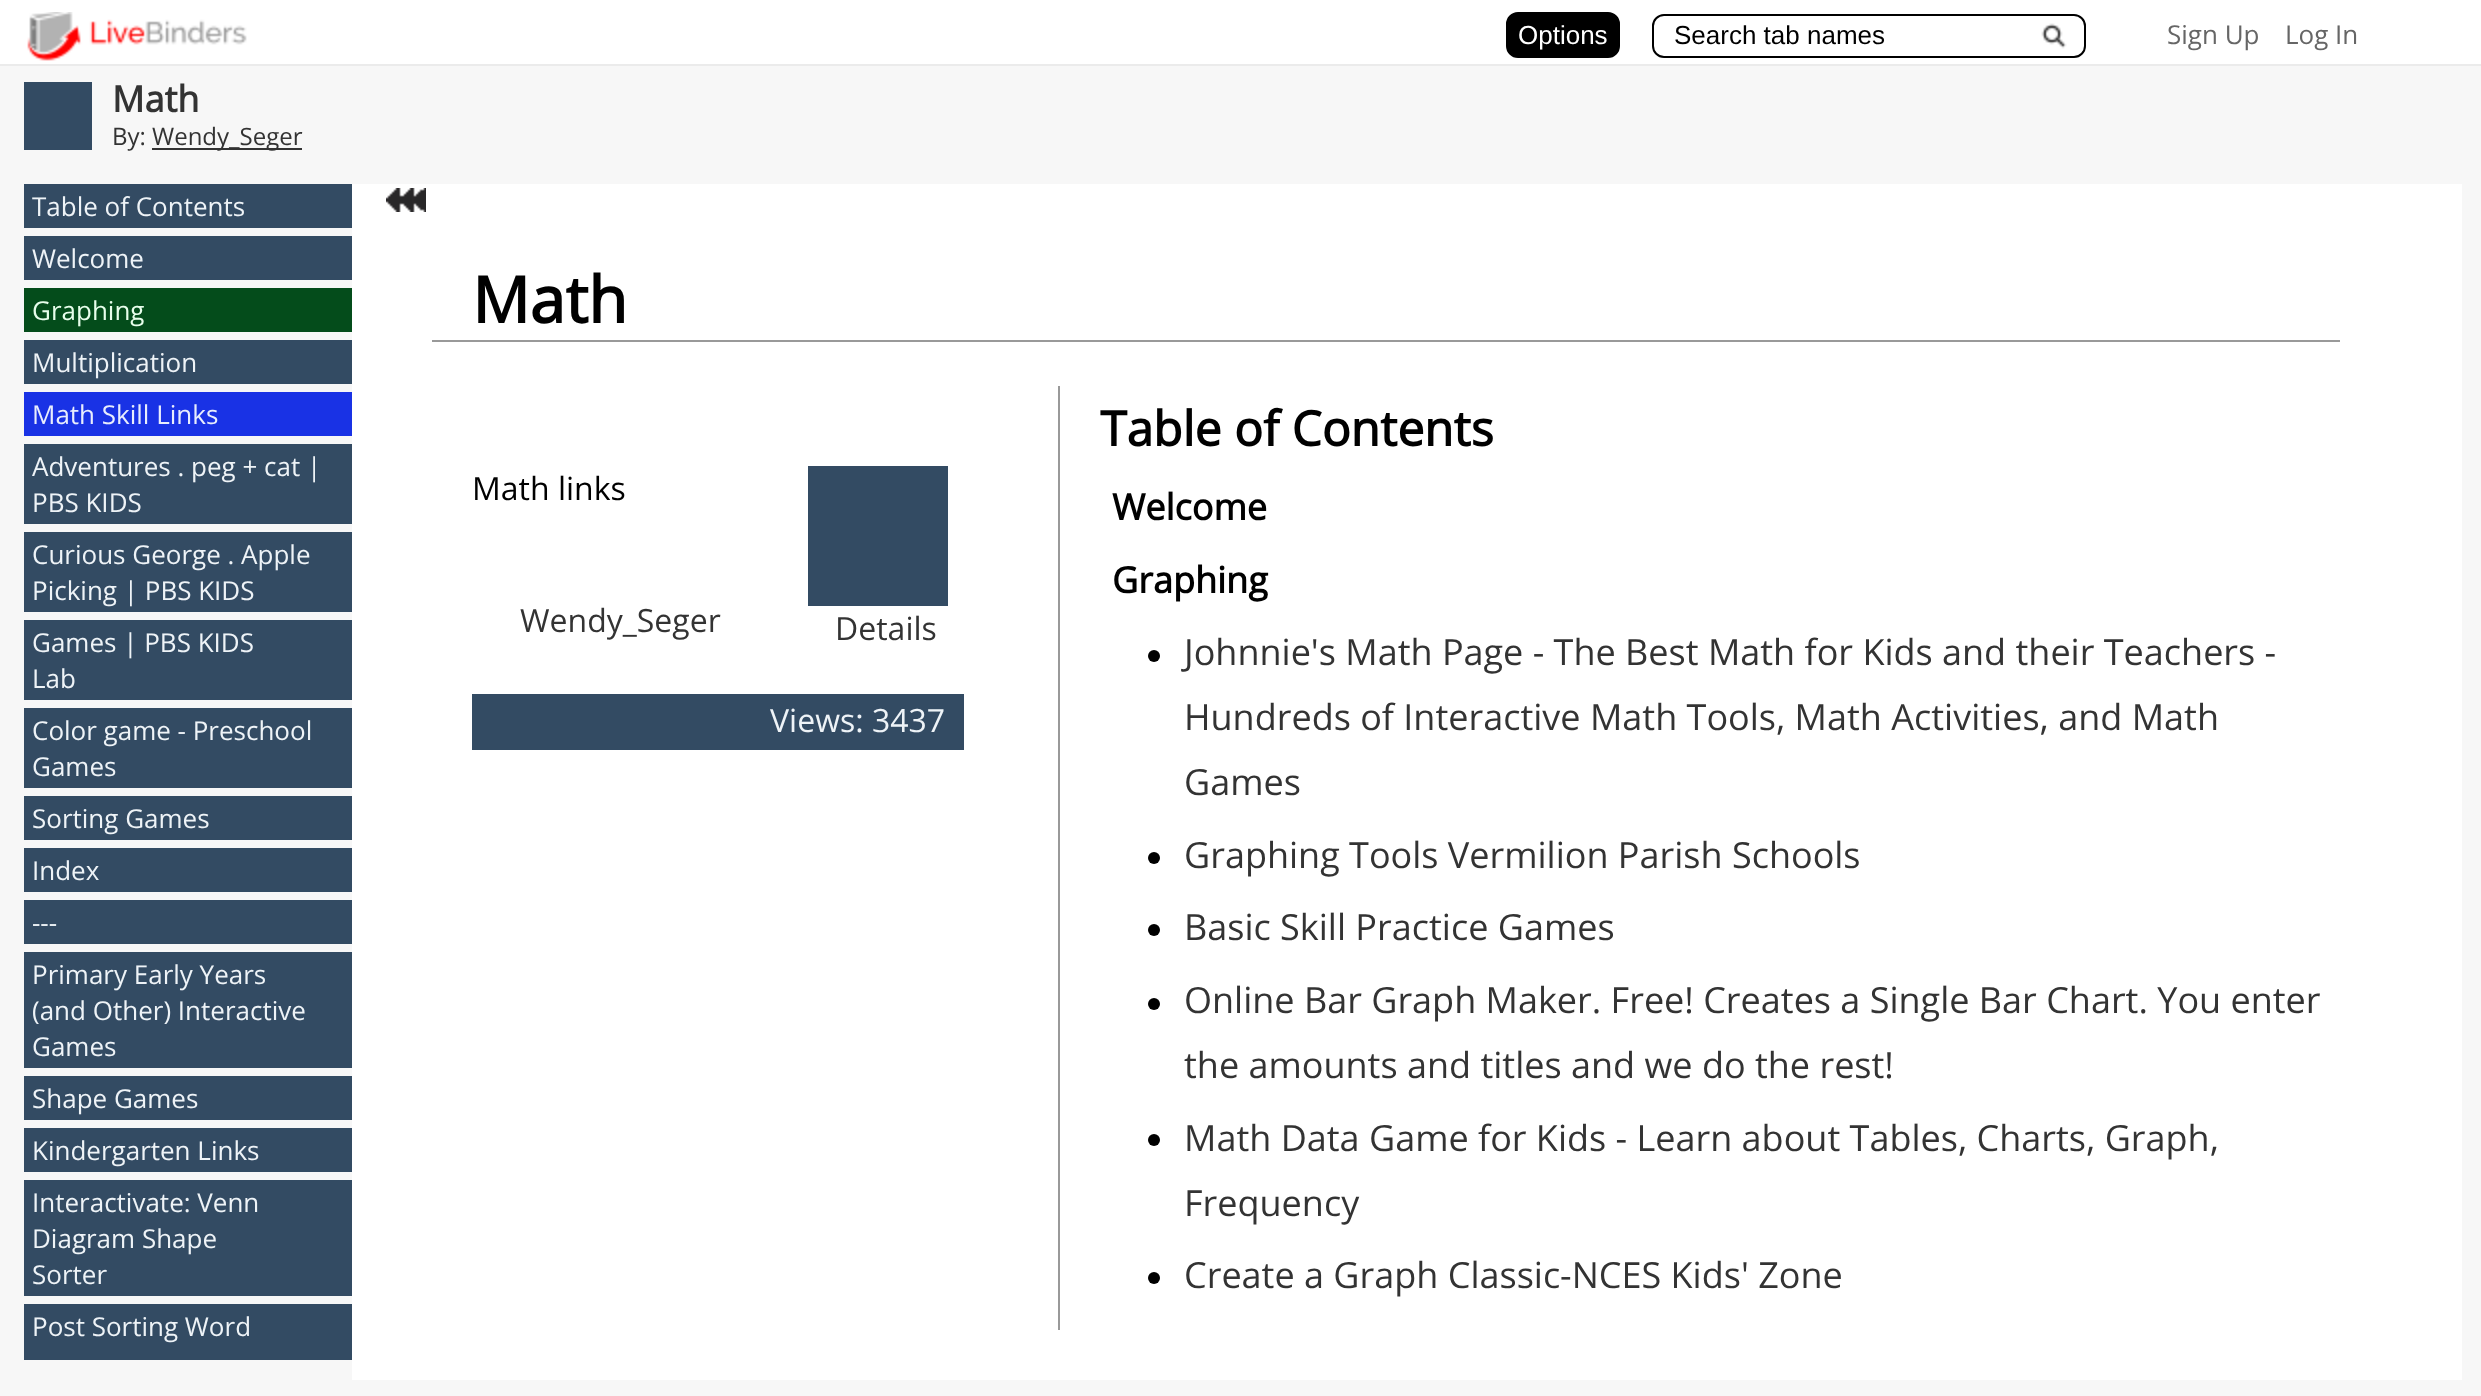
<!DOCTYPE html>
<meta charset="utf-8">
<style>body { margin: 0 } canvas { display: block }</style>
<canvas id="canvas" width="2481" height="1396"></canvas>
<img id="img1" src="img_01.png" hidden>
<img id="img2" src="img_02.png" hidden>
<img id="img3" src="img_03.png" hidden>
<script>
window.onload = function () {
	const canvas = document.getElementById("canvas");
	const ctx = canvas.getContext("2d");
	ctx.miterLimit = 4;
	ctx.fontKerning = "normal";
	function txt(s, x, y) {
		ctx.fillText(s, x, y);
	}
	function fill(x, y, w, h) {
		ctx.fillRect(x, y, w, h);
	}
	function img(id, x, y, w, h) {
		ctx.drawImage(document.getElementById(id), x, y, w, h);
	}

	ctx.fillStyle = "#F7F7F7";
	fill(0, 0, 2481, 1396);
	ctx.fillStyle = "#FFFFFF";
	fill(0, 0, 2481, 64);
	ctx.fillStyle = "#EBEBEB";
	fill(0, 64, 2481, 2);
	img("img1", 27, 12, 220, 49);
	ctx.fillStyle = "#000000";
	ctx.beginPath();
	ctx.roundRect(1507, 13, 112, 44, 11);
	ctx.fill();
	ctx.strokeStyle = "#000000";
	ctx.lineWidth = 2;
	ctx.stroke();
	img("img2", 2041, 23, 26, 26);
	ctx.beginPath();
	ctx.roundRect(1653, 15, 432, 42, 11);
	ctx.stroke();
	ctx.fillStyle = "#334B63";
	fill(24, 82, 68, 68);
	ctx.fillStyle = "#333333";
	fill(152, 148, 150, 2);
	ctx.fillStyle = "#334B63";
	fill(24, 184, 328, 44);
	fill(24, 236, 328, 44);
	ctx.fillStyle = "#044C1B";
	fill(24, 288, 328, 44);
	ctx.fillStyle = "#334B63";
	fill(24, 340, 328, 44);
	ctx.fillStyle = "#1932E5";
	fill(24, 392, 328, 44);
	ctx.fillStyle = "#334B63";
	fill(24, 444, 328, 80);
	fill(24, 532, 328, 80);
	fill(24, 620, 328, 80);
	fill(24, 708, 328, 80);
	fill(24, 796, 328, 44);
	fill(24, 848, 328, 44);
	fill(24, 900, 328, 44);
	fill(24, 952, 328, 116);
	fill(24, 1076, 328, 44);
	fill(24, 1128, 328, 44);
	fill(24, 1180, 328, 116);
	fill(24, 1304, 328, 56);
	ctx.fillStyle = "#FFFFFF";
	fill(352, 184, 2110, 1196);
	img("img3", 386, 188, 40, 24);
	ctx.fillStyle = "#999999";
	fill(432, 340, 1908, 2);
	fill(1058, 386, 2, 944);
	ctx.fillStyle = "#334B63";
	fill(808, 466, 140, 140);
	fill(472, 694, 492, 56);
	ctx.fillStyle = "#000000";
	ctx.beginPath();
	ctx.arc(1154, 656, 6, 0, Math.PI * 2);
	ctx.fill();
	ctx.beginPath();
	ctx.arc(1154, 858, 6, 0, Math.PI * 2);
	ctx.fill();
	ctx.beginPath();
	ctx.arc(1154, 930, 6, 0, Math.PI * 2);
	ctx.fill();
	ctx.beginPath();
	ctx.arc(1154, 1004, 6, 0, Math.PI * 2);
	ctx.fill();
	ctx.beginPath();
	ctx.arc(1154, 1140, 6, 0, Math.PI * 2);
	ctx.fill();
	ctx.beginPath();
	ctx.arc(1154, 1278, 6, 0, Math.PI * 2);
	ctx.fill();
	ctx.font = "26px Liberation Sans";
	ctx.fillStyle = "#FFFFFF";
	txt("Options", 1518, 44);
	ctx.fillStyle = "#000000";
	txt("Search tab names", 1674, 44);
	ctx.font = "26px Open Sans";
	ctx.fillStyle = "#666666";
	txt("Sign Up", 2167, 44);
	txt("Log In", 2285, 44);
	ctx.font = "bold 36px Open Sans";
	ctx.fillStyle = "#333333";
	txt("Math", 112, 112);
	ctx.font = "24px Open Sans";
	txt("By:", 112, 145);
	txt("Wendy_Seger", 152, 145);
	ctx.font = "26px Open Sans";
	ctx.fillStyle = "#EEF3F7";
	txt("Table of Contents", 32, 216);
	txt("Welcome", 32, 268);
	ctx.fillStyle = "#E7FEEB";
	txt("Graphing", 32, 320);
	ctx.fillStyle = "#EEF3F7";
	txt("Multiplication", 32, 372);
	ctx.fillStyle = "#E8EDFD";
	txt("Math Skill Links", 32, 424);
	ctx.fillStyle = "#EEF3F7";
	txt("Adventures . peg + cat |", 32, 476);
	txt("PBS KIDS", 32, 512);
	txt("Curious George . Apple", 32, 564);
	txt("Picking | PBS KIDS", 32, 600);
	txt("Games | PBS KIDS", 32, 652);
	txt("Lab", 32, 688);
	txt("Color game - Preschool", 32, 740);
	txt("Games", 32, 776);
	txt("Sorting Games", 32, 828);
	txt("Index", 32, 880);
	txt("---", 32, 932);
	txt("Primary Early Years", 32, 984);
	txt("(and Other) Interactive", 32, 1020);
	txt("Games", 32, 1056);
	txt("Shape Games", 32, 1108);
	txt("Kindergarten Links", 32, 1160);
	txt("Interactivate: Venn", 32, 1212);
	txt("Diagram Shape", 32, 1248);
	txt("Sorter", 32, 1284);
	txt("Post Sorting Word", 32, 1336);
	ctx.font = "bold 64px Open Sans";
	ctx.fillStyle = "#000000";
	txt("Math", 472, 323);
	ctx.font = "bold 48px Open Sans";
	txt("Table of Contents", 1100, 446);
	ctx.font = "32px Open Sans";
	txt("Math links", 472, 500);
	ctx.fillStyle = "#333333";
	txt("Wendy_Seger", 520, 632);
	txt("Details", 835, 640);
	ctx.fillStyle = "#EEF3F7";
	txt("Views: 3437", 770, 732);
	ctx.font = "bold 36px Open Sans";
	ctx.fillStyle = "#000000";
	txt("Welcome", 1112, 520);
	txt("Graphing", 1112, 593);
	ctx.font = "36px Open Sans";
	ctx.fillStyle = "#333333";
	txt("Johnnie's Math Page - The Best Math for Kids and their Teachers -", 1184, 665);
	txt("Hundreds of Interactive Math Tools, Math Activities, and Math", 1184, 730);
	txt("Games", 1184, 795);
	txt("Graphing Tools Vermilion Parish Schools", 1184, 868);
	txt("Basic Skill Practice Games", 1184, 940);
	txt("Online Bar Graph Maker. Free! Creates a Single Bar Chart. You enter", 1184, 1013);
	txt("the amounts and titles and we do the rest!", 1184, 1078);
	txt("Math Data Game for Kids - Learn about Tables, Charts, Graph,", 1184, 1151);
	txt("Frequency", 1184, 1216);
	txt("Create a Graph Classic-NCES Kids' Zone", 1184, 1288);
};
</script>
